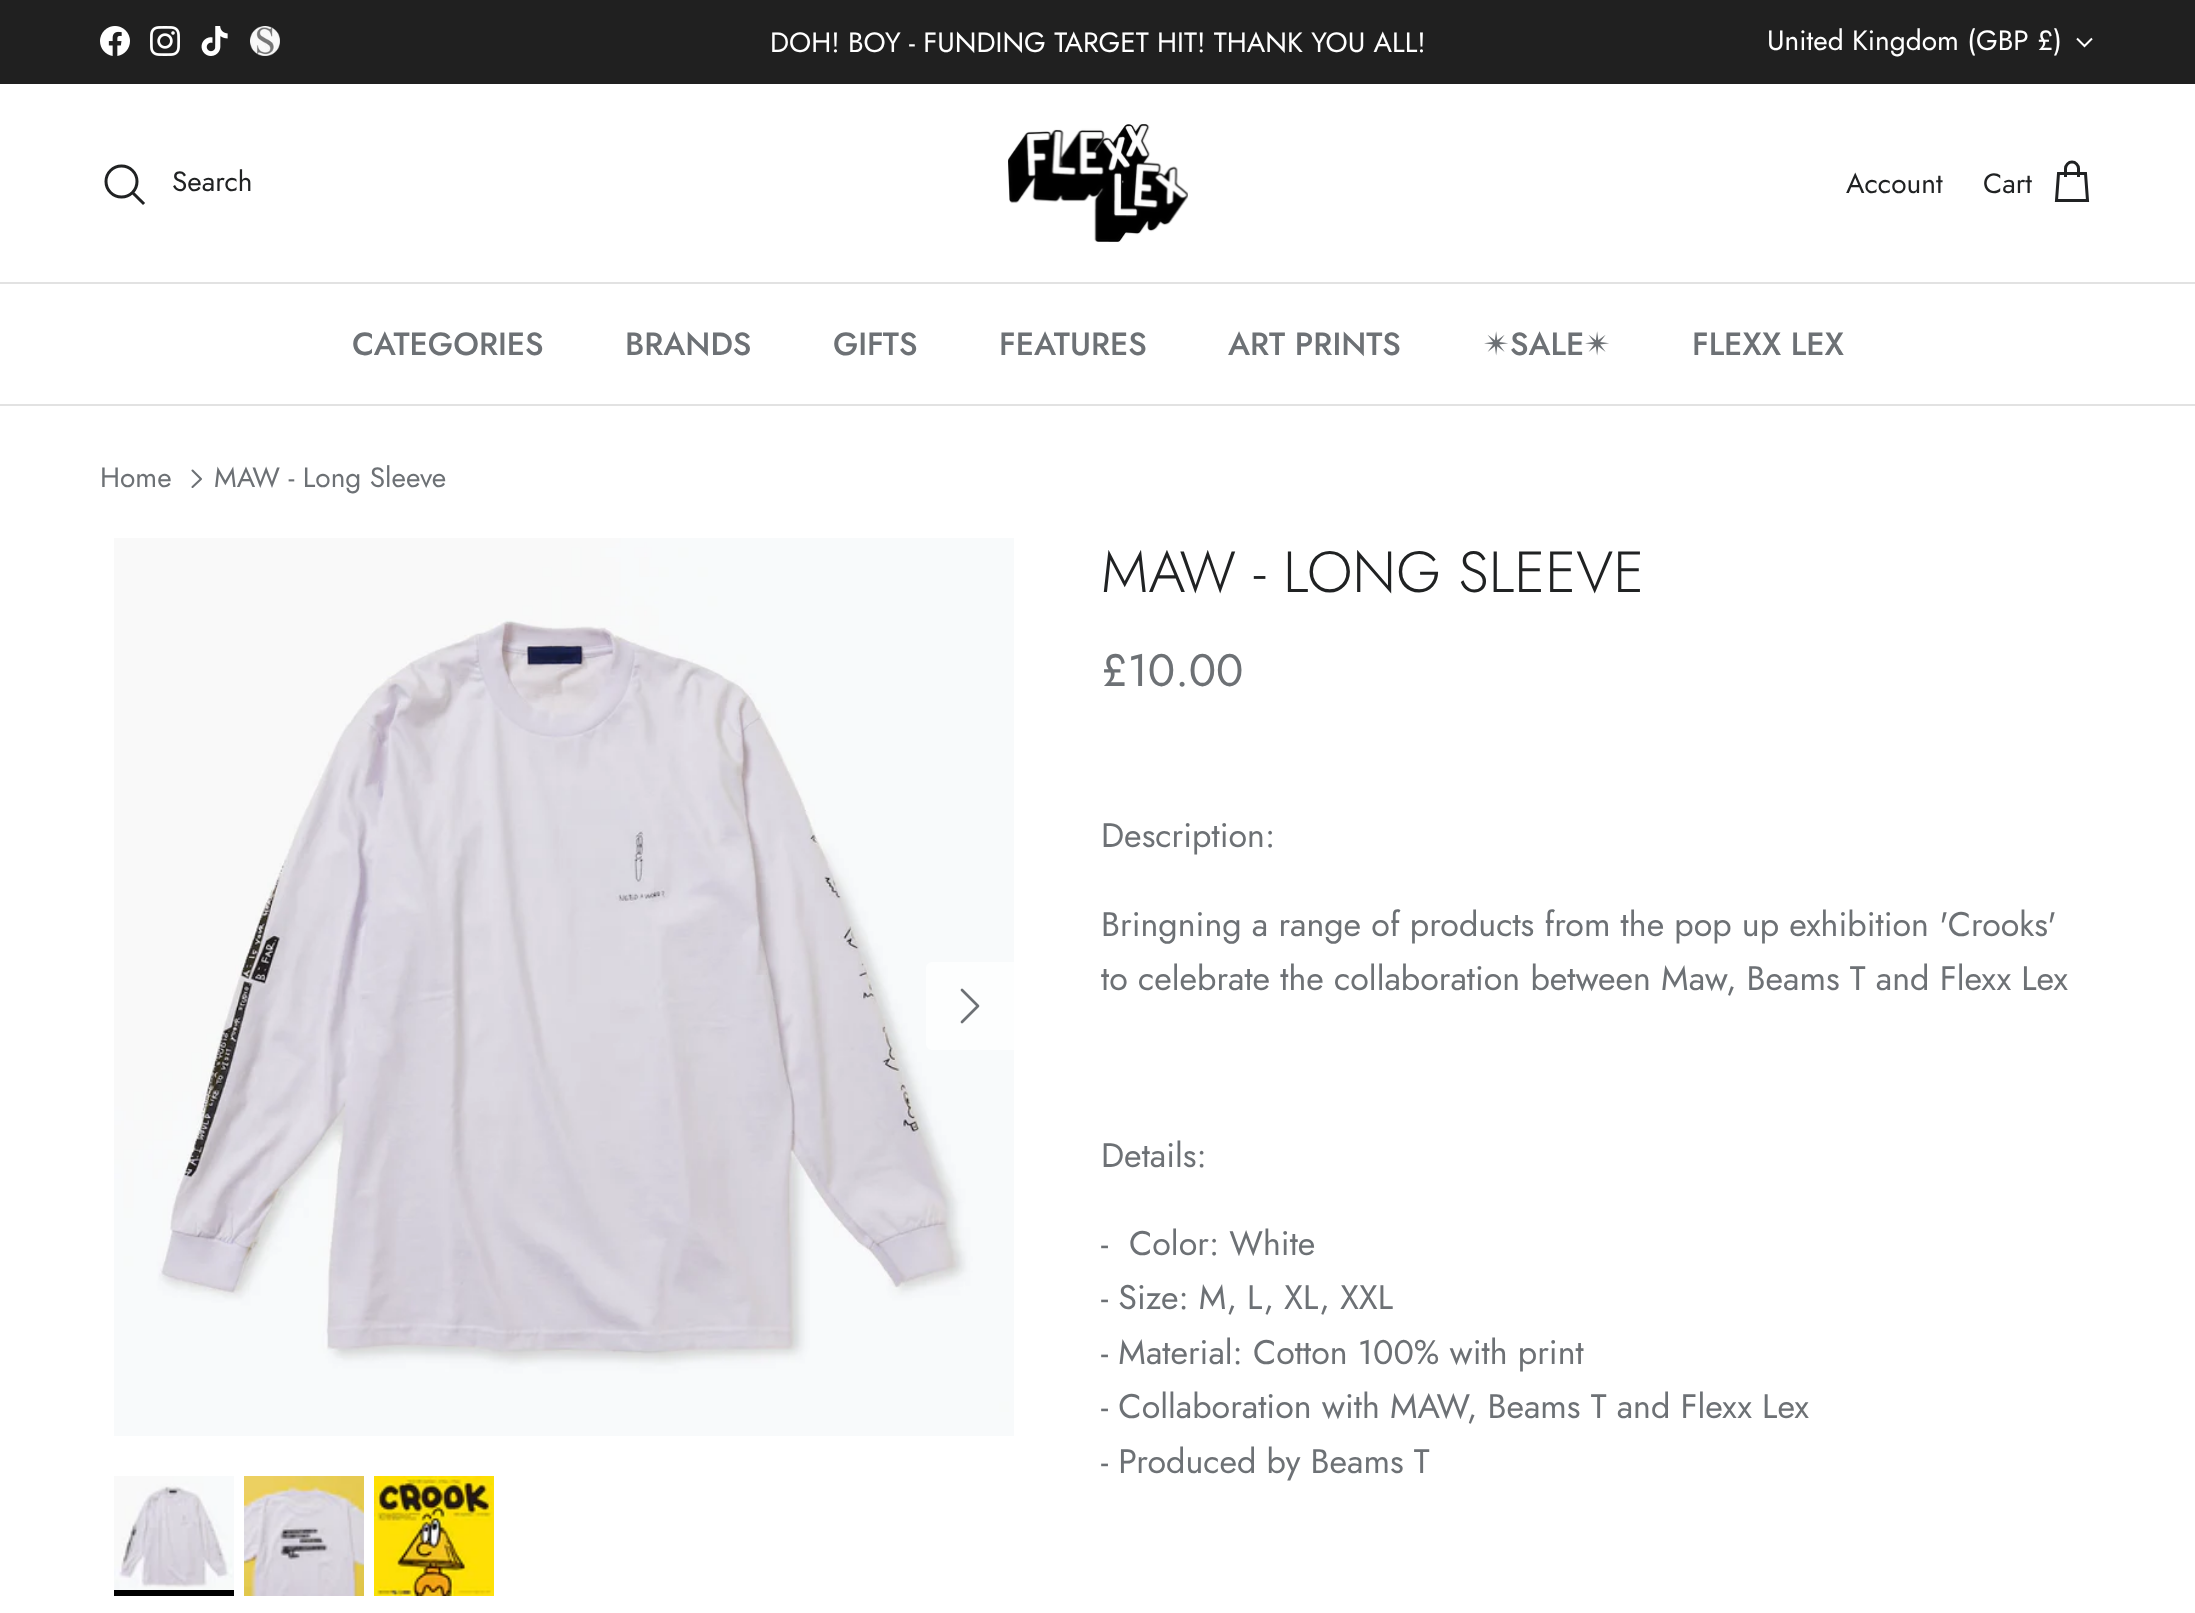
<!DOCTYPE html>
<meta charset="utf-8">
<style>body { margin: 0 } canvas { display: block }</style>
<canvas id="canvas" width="2195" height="1613"></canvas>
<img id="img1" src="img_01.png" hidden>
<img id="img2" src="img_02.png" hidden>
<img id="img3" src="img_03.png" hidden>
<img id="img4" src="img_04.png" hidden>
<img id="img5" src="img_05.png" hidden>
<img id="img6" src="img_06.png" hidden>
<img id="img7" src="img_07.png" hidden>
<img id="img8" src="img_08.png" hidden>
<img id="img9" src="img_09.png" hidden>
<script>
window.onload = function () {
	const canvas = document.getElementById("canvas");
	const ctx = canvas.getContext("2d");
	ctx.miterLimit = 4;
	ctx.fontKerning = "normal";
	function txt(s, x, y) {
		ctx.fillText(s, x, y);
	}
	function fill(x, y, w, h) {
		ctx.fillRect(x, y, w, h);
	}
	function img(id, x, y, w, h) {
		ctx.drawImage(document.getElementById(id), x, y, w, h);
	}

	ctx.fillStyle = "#FFFFFF";
	fill(0, 0, 2195, 1613);
	ctx.fillStyle = "#202020";
	fill(0, 0, 2195, 84);
	img("img1", 100, 26, 30, 30);
	img("img2", 150, 26, 30, 30);
	img("img3", 201, 26, 27, 30);
	img("img4", 250, 26, 30, 30);
	ctx.beginPath();
	ctx.moveTo(2092, 38.5);
	ctx.lineTo(2084.5, 46);
	ctx.lineTo(2077, 38.5);
	ctx.strokeStyle = "#FFFFFF";
	ctx.lineWidth = 2;
	ctx.stroke();
	ctx.fillStyle = "#E2E2E2";
	fill(0, 282, 2195, 2);
	ctx.beginPath();
	ctx.arc(121.5, 181.5, 15.5, 0, Math.PI * 2);
	ctx.strokeStyle = "#202223";
	ctx.lineWidth = 3;
	ctx.stroke();
	ctx.beginPath();
	ctx.moveTo(134, 194);
	ctx.lineTo(143, 203);
	ctx.lineCap = "square";
	ctx.stroke();
	img("img5", 1008, 124, 180, 118);
	ctx.beginPath();
	ctx.moveTo(2078.5, 177);
	ctx.lineTo(2078.5, 168.5);
	ctx.bezierCurveTo(2078.5, 165, 2075.5, 162, 2072, 162);
	ctx.bezierCurveTo(2068.5, 162, 2065.5, 165, 2065.5, 168.5);
	ctx.lineTo(2065.5, 177);
	ctx.moveTo(2058.5, 173.5);
	ctx.lineTo(2085.5, 173.5);
	ctx.lineTo(2087.5, 200.5);
	ctx.lineTo(2056.5, 200.5);
	ctx.closePath();
	ctx.lineCap = "butt";
	ctx.stroke();
	fill(0, 404, 2195, 2);
	ctx.beginPath();
	ctx.moveTo(192.5, 487);
	ctx.lineTo(201, 479);
	ctx.lineTo(192.5, 470.5);
	ctx.strokeStyle = "#6D7175";
	ctx.lineWidth = 2.1;
	ctx.lineCap = "round";
	ctx.lineJoin = "round";
	ctx.stroke();
	img("img6", 114, 538, 900, 898);
	ctx.fillStyle = "#FDFEFE";
	ctx.beginPath();
	ctx.roundRect(926, 962, 88, 88, [6, 0, 0, 6]);
	ctx.fill();
	ctx.beginPath();
	ctx.moveTo(962, 1022);
	ctx.lineTo(978, 1006);
	ctx.lineTo(962, 990);
	ctx.lineWidth = 2.7;
	ctx.stroke();
	img("img7", 114, 1476, 120, 114);
	ctx.fillStyle = "#000000";
	fill(114, 1590, 120, 6);
	img("img8", 244, 1476, 120, 120);
	img("img9", 374, 1476, 120, 120);
	ctx.font = "28px Jost";
	ctx.fillStyle = "#FFFFFF";
	txt("DOH! BOY - FUNDING TARGET HIT! THANK YOU ALL!", 770, 52);
	txt("United Kingdom (GBP £)", 1767, 50);
	ctx.fillStyle = "#202223";
	txt("Search", 172, 191);
	txt("Account", 1846, 193);
	txt("Cart", 1983, 193);
	ctx.font = "500 32px Jost";
	ctx.fillStyle = "#6D7175";
	txt("CATEGORIES", 352, 355);
	txt("BRANDS", 625, 355);
	txt("GIFTS", 833, 355);
	txt("FEATURES", 999, 355);
	txt("ART PRINTS", 1228, 355);
	ctx.font = "32px DejaVu Sans";
	txt("✴︎", 1483, 355);
	ctx.font = "500 32px Jost";
	txt("SALE", 1510, 355);
	ctx.font = "32px DejaVu Sans";
	txt("✴︎", 1584, 355);
	ctx.font = "500 32px Jost";
	txt("FLEXX LEX", 1692, 355);
	ctx.font = "28px Jost";
	txt("Home", 100, 487);
	txt("MAW - Long Sleeve", 214, 487);
	ctx.font = "300 58px Jost";
	ctx.fillStyle = "#202223";
	txt("MAW - LONG SLEEVE", 1101, 592);
	ctx.font = "45.5px Jost";
	ctx.fillStyle = "#6D7175";
	txt("£10.00", 1101, 686);
	ctx.font = "34px Jost";
	txt("Description:", 1101, 847);
	txt("Bringning a range of products from the pop up exhibition 'Crooks'", 1101, 936);
	txt("to celebrate the collaboration between Maw, Beams T and Flexx Lex", 1101, 990);
	txt("Details:", 1101, 1167);
	txt("-", 1101, 1255);
	txt("Color: White", 1129, 1255);
	txt("- Size: M, L, XL, XXL", 1101, 1309);
	txt("- Material: Cotton 100% with print", 1101, 1364);
	txt("- Collaboration with MAW, Beams T and Flexx Lex", 1101, 1418);
	txt("- Produced by Beams T", 1101, 1473);
};
</script>
